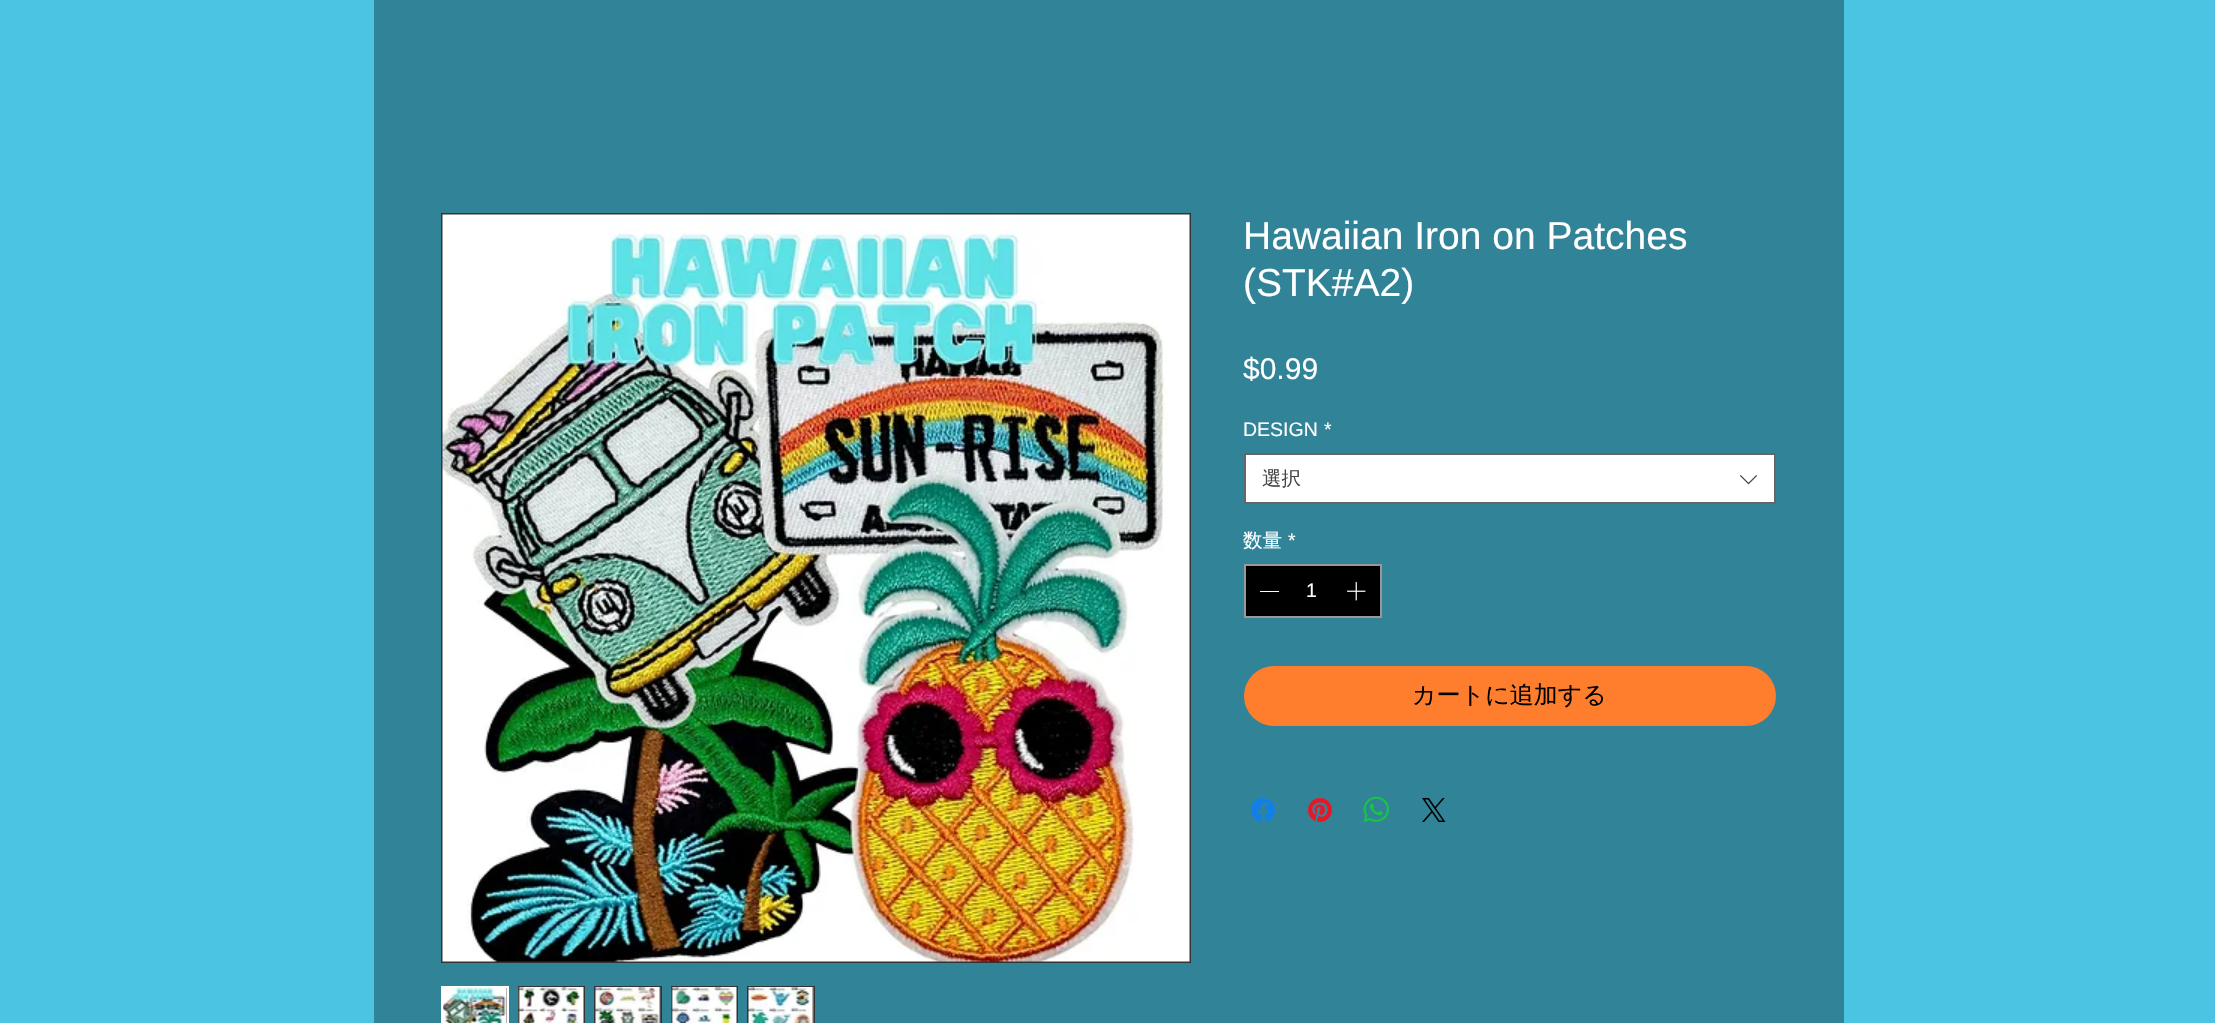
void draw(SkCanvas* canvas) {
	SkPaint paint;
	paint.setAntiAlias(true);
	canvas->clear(0xff4ac4e2);
	paint.setColor(0xff318397);
	canvas->drawRect(SkRect::MakeXYWH(374, 0, 1470, 1023), paint);
	paint.setStroke(true);
	paint.setStrokeWidth(2);
	paint.setColor(0xff333333);
	canvas->drawRect(SkRect::MakeXYWH(442, 214, 748, 748), paint);
	canvas->drawImageRect(SkImages::DeferredFromEncodedData(SkData::MakeFromFileName("img1.png")), SkRect::MakeXYWH(442, 214, 748, 748), SkSamplingOptions());
	paint.setStroke(false);
	canvas->drawRect(SkRect::MakeXYWH(506, 988, 1, 35), paint);
	paint.setStroke(true);
	paint.setColor(0xffffffff);
	canvas->drawRect(SkRect::MakeXYWH(442, 987, 66, 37), paint);
	canvas->drawImageRect(SkImages::DeferredFromEncodedData(SkData::MakeFromFileName("img2.png")), SkRect::MakeXYWH(443, 987, 64, 36), SkSamplingOptions());
	paint.setStroke(false);
	paint.setColor(0xff333333);
	canvas->drawRect(SkRect::MakeXYWH(518, 986, 67, 37), paint);
	canvas->drawImageRect(SkImages::DeferredFromEncodedData(SkData::MakeFromFileName("img3.png")), SkRect::MakeXYWH(518, 987, 66, 36), SkSamplingOptions());
	canvas->drawRect(SkRect::MakeXYWH(594, 986, 68, 37), paint);
	canvas->drawImageRect(SkImages::DeferredFromEncodedData(SkData::MakeFromFileName("img4.png")), SkRect::MakeXYWH(595, 987, 66, 36), SkSamplingOptions());
	canvas->drawRect(SkRect::MakeXYWH(671, 986, 67, 37), paint);
	canvas->drawImageRect(SkImages::DeferredFromEncodedData(SkData::MakeFromFileName("img5.png")), SkRect::MakeXYWH(671, 987, 66, 36), SkSamplingOptions());
	canvas->drawRect(SkRect::MakeXYWH(747, 986, 68, 37), paint);
	canvas->drawImageRect(SkImages::DeferredFromEncodedData(SkData::MakeFromFileName("img6.png")), SkRect::MakeXYWH(748, 987, 66, 36), SkSamplingOptions());
	SkFont f1(fontMgr->matchFamilyStyle("Liberation Sans", SkFontStyle::Normal()), 39);
	f1.setSubpixel(true);
	paint.setColor(0xffffffff);
	canvas->drawString("Hawaiian Iron on Patches", 1243, 249, f1, paint);
	canvas->drawString("(STK#A2)", 1243, 296, f1, paint);
	SkFont f2(fontMgr->matchFamilyStyle("Liberation Sans", SkFontStyle::Normal()), 30);
	f2.setSubpixel(true);
	canvas->drawString("$0.99", 1243, 379, f2, paint);
	SkFont f3(fontMgr->matchFamilyStyle("Liberation Sans", SkFontStyle::Normal()), 19.5);
	f3.setSubpixel(true);
	canvas->drawString("DESIGN", 1243, 436, f3, paint);
	canvas->drawString("*", 1324, 436, f3, paint);
	canvas->drawRect(SkRect::MakeXYWH(1245, 454, 530, 49), paint);
	paint.setStroke(true);
	paint.setColor(0xff666666);
	canvas->drawRect(SkRect::MakeXYWH(1245, 454, 530, 49), paint);
	SkFont f4(fontMgr->matchFamilyStyle("WenQuanYi Zen Hei", SkFontStyle(500, SkFontStyle::kNormal_Width, SkFontStyle::kUpright_Slant)), 19.5);
	f4.setSubpixel(true);
	paint.setStroke(false);
	paint.setColor(0xff444444);
	canvas->drawString("選択", 1262, 485, f4, paint);
	canvas->drawImageRect(SkImages::DeferredFromEncodedData(SkData::MakeFromFileName("img7.png")), SkRect::MakeXYWH(1740, 475, 17, 10), SkSamplingOptions());
	paint.setColor(0xffffffff);
	canvas->drawString("数量", 1243, 547, f4, paint);
	canvas->drawString("*", 1288, 547, f3, paint);
	paint.setColor(0xff000000);
	canvas->drawRect(SkRect::MakeXYWH(1245, 565, 136, 52), paint);
	paint.setStroke(true);
	paint.setColor(0xff999999);
	canvas->drawRect(SkRect::MakeXYWH(1245, 565, 136, 52), paint);
	paint.setStroke(false);
	paint.setColor(0xffffffff);
	canvas->drawRect(SkRect::MakeXYWH(1260, 591, 19, 1), paint);
	canvas->drawString("1", 1306, 597, f3, paint);
	canvas->drawImageRect(SkImages::DeferredFromEncodedData(SkData::MakeFromFileName("img8.png")), SkRect::MakeXYWH(1347, 582, 19, 19), SkSamplingOptions());
	paint.setColor(0xffff7e2d);
	canvas->drawRoundRect(SkRect::MakeXYWH(1244, 666, 532, 60), 30, 30, paint);
	SkFont f5(fontMgr->matchFamilyStyle("WenQuanYi Zen Hei", SkFontStyle(500, SkFontStyle::kNormal_Width, SkFontStyle::kUpright_Slant)), 24);
	f5.setSubpixel(true);
	paint.setColor(0xff000000);
	canvas->drawString("カートに追加する", 1412, 703, f5, paint);
	canvas->drawImageRect(SkImages::DeferredFromEncodedData(SkData::MakeFromFileName("img9.png")), SkRect::MakeXYWH(1251, 798, 24, 24), SkSamplingOptions());
	canvas->drawImageRect(SkImages::DeferredFromEncodedData(SkData::MakeFromFileName("img10.png")), SkRect::MakeXYWH(1308, 798, 24, 24), SkSamplingOptions());
	canvas->drawImageRect(SkImages::DeferredFromEncodedData(SkData::MakeFromFileName("img11.png")), SkRect::MakeXYWH(1363, 796, 26, 26), SkSamplingOptions());
	canvas->drawImageRect(SkImages::DeferredFromEncodedData(SkData::MakeFromFileName("img12.png")), SkRect::MakeXYWH(1422, 798, 24, 24), SkSamplingOptions());
}
